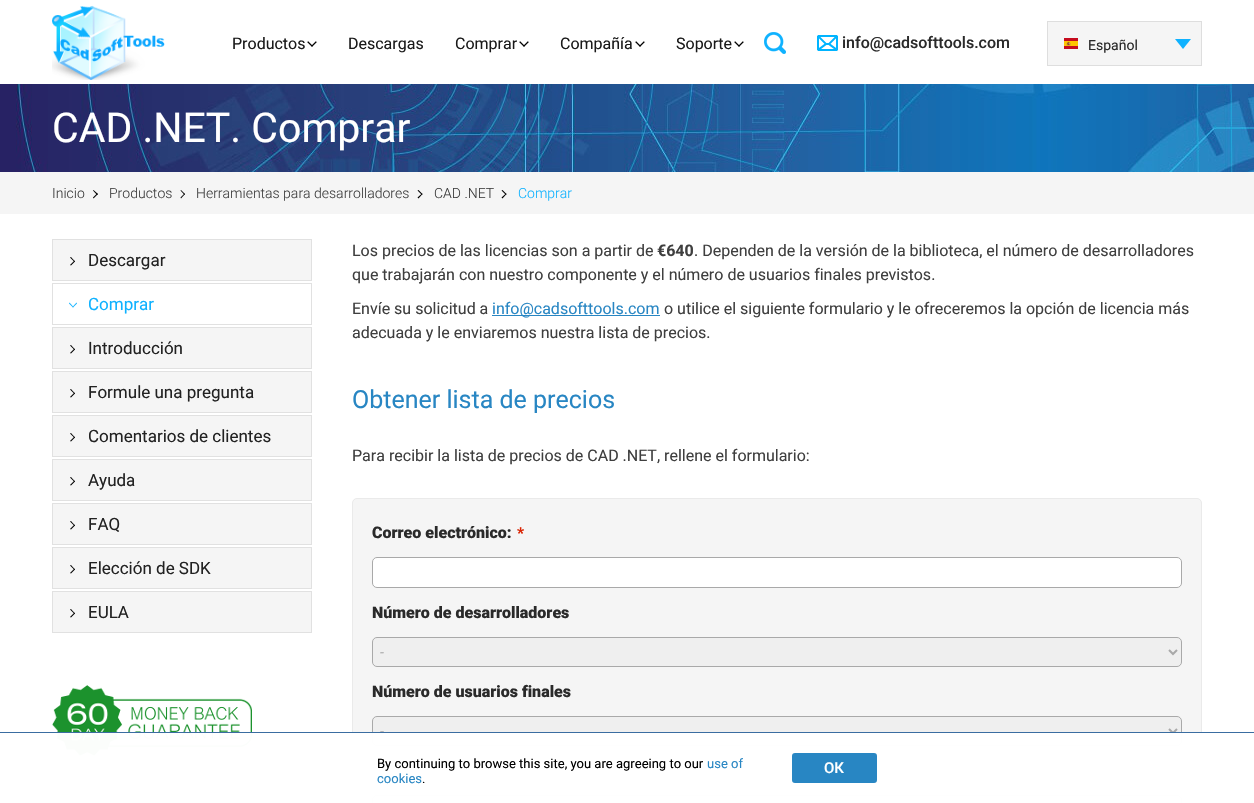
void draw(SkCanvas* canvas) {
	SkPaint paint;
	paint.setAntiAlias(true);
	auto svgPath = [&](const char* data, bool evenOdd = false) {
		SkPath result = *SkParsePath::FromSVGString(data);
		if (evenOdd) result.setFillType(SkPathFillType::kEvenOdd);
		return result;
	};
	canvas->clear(0xffffffff);
	canvas->drawImageRect(SkImages::DeferredFromEncodedData(SkData::MakeFromFileName("img1.png")), SkRect::MakeXYWH(52, 5, 113, 75), SkSamplingOptions());
	SkFont f1(fontMgr->matchFamilyStyle("Roboto", SkFontStyle::Normal()), 16);
	f1.setSubpixel(true);
	paint.setColor(0xff1a1a1a);
	canvas->drawString("Productos", 232, 49, f1, paint);
	canvas->drawImageRect(SkImages::DeferredFromEncodedData(SkData::MakeFromFileName("img2.png")), SkRect::MakeXYWH(307, 41, 10, 6), SkSamplingOptions());
	canvas->drawString("Descargas", 348, 49, f1, paint);
	canvas->drawString("Comprar", 455, 49, f1, paint);
	canvas->drawImageRect(SkImages::DeferredFromEncodedData(SkData::MakeFromFileName("img2.png")), SkRect::MakeXYWH(519, 41, 10, 6), SkSamplingOptions());
	canvas->drawString("Compañía", 560, 49, f1, paint);
	canvas->drawImageRect(SkImages::DeferredFromEncodedData(SkData::MakeFromFileName("img2.png")), SkRect::MakeXYWH(635, 41, 10, 6), SkSamplingOptions());
	canvas->drawString("Soporte", 676, 49, f1, paint);
	canvas->drawImageRect(SkImages::DeferredFromEncodedData(SkData::MakeFromFileName("img2.png")), SkRect::MakeXYWH(734, 41, 10, 6), SkSamplingOptions());
	canvas->drawImageRect(SkImages::DeferredFromEncodedData(SkData::MakeFromFileName("img3.png")), SkRect::MakeXYWH(764, 32, 22, 22), SkSamplingOptions());
	canvas->drawImageRect(SkImages::DeferredFromEncodedData(SkData::MakeFromFileName("img4.png")), SkRect::MakeXYWH(817, 35, 21, 16), SkSamplingOptions());
	SkFont f2(fontMgr->matchFamilyStyle("Roboto", SkFontStyle(500, SkFontStyle::kNormal_Width, SkFontStyle::kUpright_Slant)), 16);
	f2.setSubpixel(true);
	paint.setColor(0xff2a2a2a);
	canvas->drawString("info@cadsofttools.com", 842, 48, f2, paint);
	paint.setColor(0xfff5f5f5);
	canvas->drawRect(SkRect::MakeXYWH(1047.5, 21.5, 154, 44), paint);
	paint.setStroke(true);
	paint.setStrokeWidth(1);
	paint.setColor(0xffdedede);
	canvas->drawRect(SkRect::MakeXYWH(1047.5, 21.5, 154, 44), paint);
	canvas->drawImageRect(SkImages::DeferredFromEncodedData(SkData::MakeFromFileName("img5.png")), SkRect::MakeXYWH(1064, 38, 14, 11), SkSamplingOptions());
	SkFont f3(fontMgr->matchFamilyStyle("Roboto", SkFontStyle::Normal()), 14);
	f3.setSubpixel(true);
	paint.setStroke(false);
	paint.setColor(0xff2a2a2a);
	canvas->drawString("Español", 1088, 50, f3, paint);
	paint.setColor(0xff0fb2ff);
	canvas->drawPath(svgPath("M1175 39H1191L1183 49Z"), paint);
	canvas->drawImageRect(SkImages::DeferredFromEncodedData(SkData::MakeFromFileName("img6.png")), SkRect::MakeXYWH(0, 84, 1254, 88), SkSamplingOptions());
	SkFont f4(fontMgr->matchFamilyStyle("Roboto", SkFontStyle::Normal()), 41);
	f4.setSubpixel(true);
	paint.setColor(0xffffffff);
	canvas->drawString("CAD .NET. Comprar", 52, 142, f4, paint);
	paint.setColor(0xfff5f5f5);
	canvas->drawRect(SkRect::MakeXYWH(0, 172, 1254, 42), paint);
	SkFont f5(fontMgr->matchFamilyStyle("Roboto", SkFontStyle(300, SkFontStyle::kNormal_Width, SkFontStyle::kUpright_Slant)), 14);
	f5.setSubpixel(true);
	paint.setColor(0xff3f3f3f);
	canvas->drawString("Inicio", 52, 198, f5, paint);
	paint.setColor(0xff000000);
	canvas->drawPath(svgPath("M93 190.5L93.5 190L98 194L97 195Z"), paint);
	canvas->drawPath(svgPath("M93 197.5L97 193.5L98 194L93.5 198.5Z"), paint);
	paint.setColor(0xff3f3f3f);
	canvas->drawString("Productos", 109, 198, f5, paint);
	paint.setColor(0xff000000);
	canvas->drawPath(svgPath("M180.5 190.5L181 190L185 194L184.5 195Z"), paint);
	canvas->drawPath(svgPath("M180.5 197.5L184.5 193.5L185 194L181 198.5Z"), paint);
	paint.setColor(0xff3f3f3f);
	canvas->drawString("Herramientas para desarrolladores", 196, 198, f5, paint);
	paint.setColor(0xff000000);
	canvas->drawPath(svgPath("M417.5 190.5L418.5 190L422.5 194L422 195Z"), paint);
	canvas->drawPath(svgPath("M417.5 197.5L422 193.5L422.5 194L418.5 198.5Z"), paint);
	paint.setColor(0xff3f3f3f);
	canvas->drawString("CAD .NET", 434, 198, f5, paint);
	paint.setColor(0xff000000);
	canvas->drawPath(svgPath("M501.5 190.5L502.5 190L506.5 194L506 195Z"), paint);
	canvas->drawPath(svgPath("M501.5 197.5L506 193.5L506.5 194L502.5 198.5Z"), paint);
	paint.setColor(0xff0fb2ff);
	canvas->drawString("Comprar", 518, 198, f5, paint);
	paint.setColor(0xfff5f5f5);
	canvas->drawRect(SkRect::MakeXYWH(52.5, 239.5, 259, 41), paint);
	paint.setStroke(true);
	paint.setColor(0xffe1e1e1);
	canvas->drawRect(SkRect::MakeXYWH(52.5, 239.5, 259, 41), paint);
	paint.setStroke(false);
	paint.setColor(0xff000000);
	canvas->drawPath(svgPath("M70 257.5L71 257L75 261.5L74.5 262Z"), paint);
	canvas->drawPath(svgPath("M70 265L74.5 260.5L75 261.5L71 265.5Z"), paint);
	SkFont f6(fontMgr->matchFamilyStyle("Roboto", SkFontStyle::Normal()), 17);
	f6.setSubpixel(true);
	paint.setColor(0xff222222);
	canvas->drawString("Descargar", 88, 266, f6, paint);
	paint.setStroke(true);
	paint.setColor(0xffe1e1e1);
	canvas->drawRect(SkRect::MakeXYWH(52.5, 283.5, 259, 41), paint);
	paint.setStroke(false);
	paint.setColor(0xff0fb2ff);
	canvas->drawPath(svgPath("M76.5 302.5L77 303.5L73 307.5L72.5 307Z"), paint);
	canvas->drawPath(svgPath("M69.5 302.5L73.5 307L73 307.5L69 303.5Z"), paint);
	canvas->drawString("Comprar", 88, 310, f6, paint);
	paint.setColor(0xfff5f5f5);
	canvas->drawRect(SkRect::MakeXYWH(52.5, 327.5, 259, 41), paint);
	paint.setStroke(true);
	paint.setColor(0xffe1e1e1);
	canvas->drawRect(SkRect::MakeXYWH(52.5, 327.5, 259, 41), paint);
	paint.setStroke(false);
	paint.setColor(0xff000000);
	canvas->drawPath(svgPath("M70 345.5L71 345L75 349.5L74.5 350Z"), paint);
	canvas->drawPath(svgPath("M70 353L74.5 348.5L75 349.5L71 353.5Z"), paint);
	paint.setColor(0xff222222);
	canvas->drawString("Introducción", 88, 354, f6, paint);
	paint.setColor(0xfff5f5f5);
	canvas->drawRect(SkRect::MakeXYWH(52.5, 371.5, 259, 41), paint);
	paint.setStroke(true);
	paint.setColor(0xffe1e1e1);
	canvas->drawRect(SkRect::MakeXYWH(52.5, 371.5, 259, 41), paint);
	paint.setStroke(false);
	paint.setColor(0xff000000);
	canvas->drawPath(svgPath("M70 389.5L71 389L75 393.5L74.5 394Z"), paint);
	canvas->drawPath(svgPath("M70 397L74.5 392.5L75 393.5L71 397.5Z"), paint);
	paint.setColor(0xff222222);
	canvas->drawString("Formule una pregunta", 88, 398, f6, paint);
	paint.setColor(0xfff5f5f5);
	canvas->drawRect(SkRect::MakeXYWH(52.5, 415.5, 259, 41), paint);
	paint.setStroke(true);
	paint.setColor(0xffe1e1e1);
	canvas->drawRect(SkRect::MakeXYWH(52.5, 415.5, 259, 41), paint);
	paint.setStroke(false);
	paint.setColor(0xff000000);
	canvas->drawPath(svgPath("M70 433.5L71 433L75 437.5L74.5 438Z"), paint);
	canvas->drawPath(svgPath("M70 441L74.5 436.5L75 437.5L71 441.5Z"), paint);
	paint.setColor(0xff222222);
	canvas->drawString("Comentarios de clientes", 88, 442, f6, paint);
	paint.setColor(0xfff5f5f5);
	canvas->drawRect(SkRect::MakeXYWH(52.5, 459.5, 259, 41), paint);
	paint.setStroke(true);
	paint.setColor(0xffe1e1e1);
	canvas->drawRect(SkRect::MakeXYWH(52.5, 459.5, 259, 41), paint);
	paint.setStroke(false);
	paint.setColor(0xff000000);
	canvas->drawPath(svgPath("M70 477.5L71 477L75 481.5L74.5 482Z"), paint);
	canvas->drawPath(svgPath("M70 485L74.5 480.5L75 481.5L71 485.5Z"), paint);
	paint.setColor(0xff222222);
	canvas->drawString("Ayuda", 88, 486, f6, paint);
	paint.setColor(0xfff5f5f5);
	canvas->drawRect(SkRect::MakeXYWH(52.5, 503.5, 259, 41), paint);
	paint.setStroke(true);
	paint.setColor(0xffe1e1e1);
	canvas->drawRect(SkRect::MakeXYWH(52.5, 503.5, 259, 41), paint);
	paint.setStroke(false);
	paint.setColor(0xff000000);
	canvas->drawPath(svgPath("M70 521.5L71 521L75 525.5L74.5 526Z"), paint);
	canvas->drawPath(svgPath("M70 529L74.5 524.5L75 525.5L71 529.5Z"), paint);
	paint.setColor(0xff222222);
	canvas->drawString("FAQ", 88, 530, f6, paint);
	paint.setColor(0xfff5f5f5);
	canvas->drawRect(SkRect::MakeXYWH(52.5, 547.5, 259, 41), paint);
	paint.setStroke(true);
	paint.setColor(0xffe1e1e1);
	canvas->drawRect(SkRect::MakeXYWH(52.5, 547.5, 259, 41), paint);
	paint.setStroke(false);
	paint.setColor(0xff000000);
	canvas->drawPath(svgPath("M70 565.5L71 565L75 569.5L74.5 570Z"), paint);
	canvas->drawPath(svgPath("M70 573L74.5 568.5L75 569.5L71 573.5Z"), paint);
	paint.setColor(0xff222222);
	canvas->drawString("Elección de SDK", 88, 574, f6, paint);
	paint.setColor(0xfff5f5f5);
	canvas->drawRect(SkRect::MakeXYWH(52.5, 591.5, 259, 41), paint);
	paint.setStroke(true);
	paint.setColor(0xffe1e1e1);
	canvas->drawRect(SkRect::MakeXYWH(52.5, 591.5, 259, 41), paint);
	paint.setStroke(false);
	paint.setColor(0xff000000);
	canvas->drawPath(svgPath("M70 609.5L71 609L75 613.5L74.5 614Z"), paint);
	canvas->drawPath(svgPath("M70 617L74.5 612.5L75 613.5L71 617.5Z"), paint);
	paint.setColor(0xff222222);
	canvas->drawString("EULA", 88, 618, f6, paint);
	canvas->drawImageRect(SkImages::DeferredFromEncodedData(SkData::MakeFromFileName("img7.png")), SkRect::MakeXYWH(52, 685, 200, 71), SkSamplingOptions());
	paint.setColor(0xff3f3f3f);
	canvas->drawString("Los precios de las licencias son a partir de", 352, 256, f1, paint);
	SkFont f7(fontMgr->matchFamilyStyle("Roboto", SkFontStyle::Bold()), 16);
	f7.setSubpixel(true);
	canvas->drawString("€640", 657, 256, f7, paint);
	canvas->drawString(". Dependen de la versión de la biblioteca, el número de desarrolladores", 694, 256, f1, paint);
	canvas->drawString("que trabajarán con nuestro componente y el número de usuarios finales previstos.", 352, 280, f1, paint);
	canvas->drawString("Envíe su solicitud a", 352, 314, f1, paint);
	paint.setColor(0xff2886c3);
	canvas->drawRect(SkRect::MakeXYWH(492, 315, 168, 1), paint);
	canvas->drawString("info@cadsofttools.com", 492, 314, f1, paint);
	paint.setColor(0xff3f3f3f);
	canvas->drawString("o utilice el siguiente formulario y le ofreceremos la opción de licencia más", 664, 314, f1, paint);
	canvas->drawString("adecuada y le enviaremos nuestra lista de precios.", 352, 338, f1, paint);
	SkFont f8(fontMgr->matchFamilyStyle("Roboto", SkFontStyle::Normal()), 25);
	f8.setSubpixel(true);
	paint.setColor(0xff2886c3);
	canvas->drawString("Obtener lista de precios", 352, 408, f8, paint);
	paint.setColor(0xff3f3f3f);
	canvas->drawString("Para recibir la lista de precios de CAD .NET, rellene el formulario:", 352, 461, f1, paint);
	paint.setColor(0xfff5f5f5);
	canvas->drawRoundRect(SkRect::MakeXYWH(352.5, 498.5, 849, 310), 4.5, 4.5, paint);
	paint.setStroke(true);
	paint.setColor(0xffeaeaea);
	canvas->drawRoundRect(SkRect::MakeXYWH(352.5, 498.5, 849, 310), 4.5, 4.5, paint);
	SkFont f9(fontMgr->matchFamilyStyle("Roboto", SkFontStyle(900, SkFontStyle::kNormal_Width, SkFontStyle::kUpright_Slant)), 16);
	f9.setSubpixel(true);
	paint.setStroke(false);
	paint.setColor(0xff2a2a2a);
	canvas->drawString("Correo electrónico:", 372, 538, f9, paint);
	SkFont f10(fontMgr->matchFamilyStyle("Roboto", SkFontStyle(900, SkFontStyle::kNormal_Width, SkFontStyle::kUpright_Slant)), 15);
	f10.setSubpixel(true);
	paint.setColor(0xffda2403);
	canvas->drawString("*", 517, 538, f10, paint);
	paint.setColor(0xffffffff);
	canvas->drawRoundRect(SkRect::MakeXYWH(372.5, 557.5, 809, 30), 4.5, 4.5, paint);
	paint.setStroke(true);
	paint.setColor(0xffa9a9a9);
	canvas->drawRoundRect(SkRect::MakeXYWH(372.5, 557.5, 809, 30), 4.5, 4.5, paint);
	paint.setStroke(false);
	paint.setColor(0xff2a2a2a);
	canvas->drawString("Número de desarrolladores", 372, 618, f9, paint);
	paint.setColor(0xffefefef);
	canvas->drawRoundRect(SkRect::MakeXYWH(372.5, 637.5, 809, 29), 4.5, 4.5, paint);
	paint.setStroke(true);
	paint.setColor(0xffa9a9a9);
	canvas->drawRoundRect(SkRect::MakeXYWH(372.5, 637.5, 809, 29), 4.5, 4.5, paint);
	paint.setStrokeWidth(2);
	canvas->drawPath(svgPath("M1169 650L1173 654L1177 650"), paint);
	SkFont f11(fontMgr->matchFamilyStyle("Roboto", SkFontStyle::Italic()), 14);
	f11.setSubpixel(true);
	paint.setStroke(false);
	canvas->drawString("-", 379, 657, f11, paint);
	paint.setColor(0xff2a2a2a);
	canvas->drawString("Número de usuarios finales", 372, 697, f9, paint);
	paint.setColor(0xffefefef);
	canvas->drawRoundRect(SkRect::MakeXYWH(372.5, 716.5, 809, 29), 4.5, 4.5, paint);
	paint.setStroke(true);
	paint.setStrokeWidth(1);
	paint.setColor(0xffa9a9a9);
	canvas->drawRoundRect(SkRect::MakeXYWH(372.5, 716.5, 809, 29), 4.5, 4.5, paint);
	paint.setStrokeWidth(2);
	canvas->drawPath(svgPath("M1169 729L1173 733L1177 729"), paint);
	paint.setStroke(false);
	canvas->drawString("-", 379, 736, f11, paint);
	paint.setColor(0xffffffff);
	canvas->drawRoundRect(SkRect::MakeXYWH(372.5, 795.5, 809, 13), 4.5, 4.5, paint);
	paint.setStroke(true);
	paint.setStrokeWidth(1);
	paint.setColor(0xffa9a9a9);
	canvas->drawRoundRect(SkRect::MakeXYWH(372.5, 795.5, 809, 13), 4.5, 4.5, paint);
	paint.setStroke(false);
	paint.setColor(0xfaffffff);
	canvas->drawRect(SkRect::MakeXYWH(56, 733, 1146, 70), paint);
	paint.setColor(0xff3a6da1);
	canvas->drawRect(SkRect::MakeXYWH(0, 732, 1254, 1), paint);
	SkFont f12(fontMgr->matchFamilyStyle("Roboto", SkFontStyle::Normal()), 13);
	f12.setSubpixel(true);
	paint.setColor(0xff000000);
	canvas->drawString("By continuing to browse this site, you are agreeing to our", 377, 768, f12, paint);
	paint.setColor(0xff2886c3);
	canvas->drawString("use of", 707, 768, f12, paint);
	canvas->drawString("cookies", 377, 783, f12, paint);
	paint.setColor(0xff000000);
	canvas->drawString(".", 422, 783, f12, paint);
	paint.setColor(0xff2886c3);
	canvas->drawRoundRect(SkRect::MakeXYWH(793, 754, 83, 28), 2, 2, paint);
	paint.setStroke(true);
	paint.setStrokeWidth(2);
	canvas->drawRoundRect(SkRect::MakeXYWH(793, 754, 83, 28), 2, 2, paint);
	SkFont f13(fontMgr->matchFamilyStyle("Roboto", SkFontStyle(500, SkFontStyle::kNormal_Width, SkFontStyle::kUpright_Slant)), 15);
	f13.setSubpixel(true);
	paint.setStroke(false);
	paint.setColor(0xffffffff);
	canvas->drawString("ОК", 824, 773, f13, paint);
}
